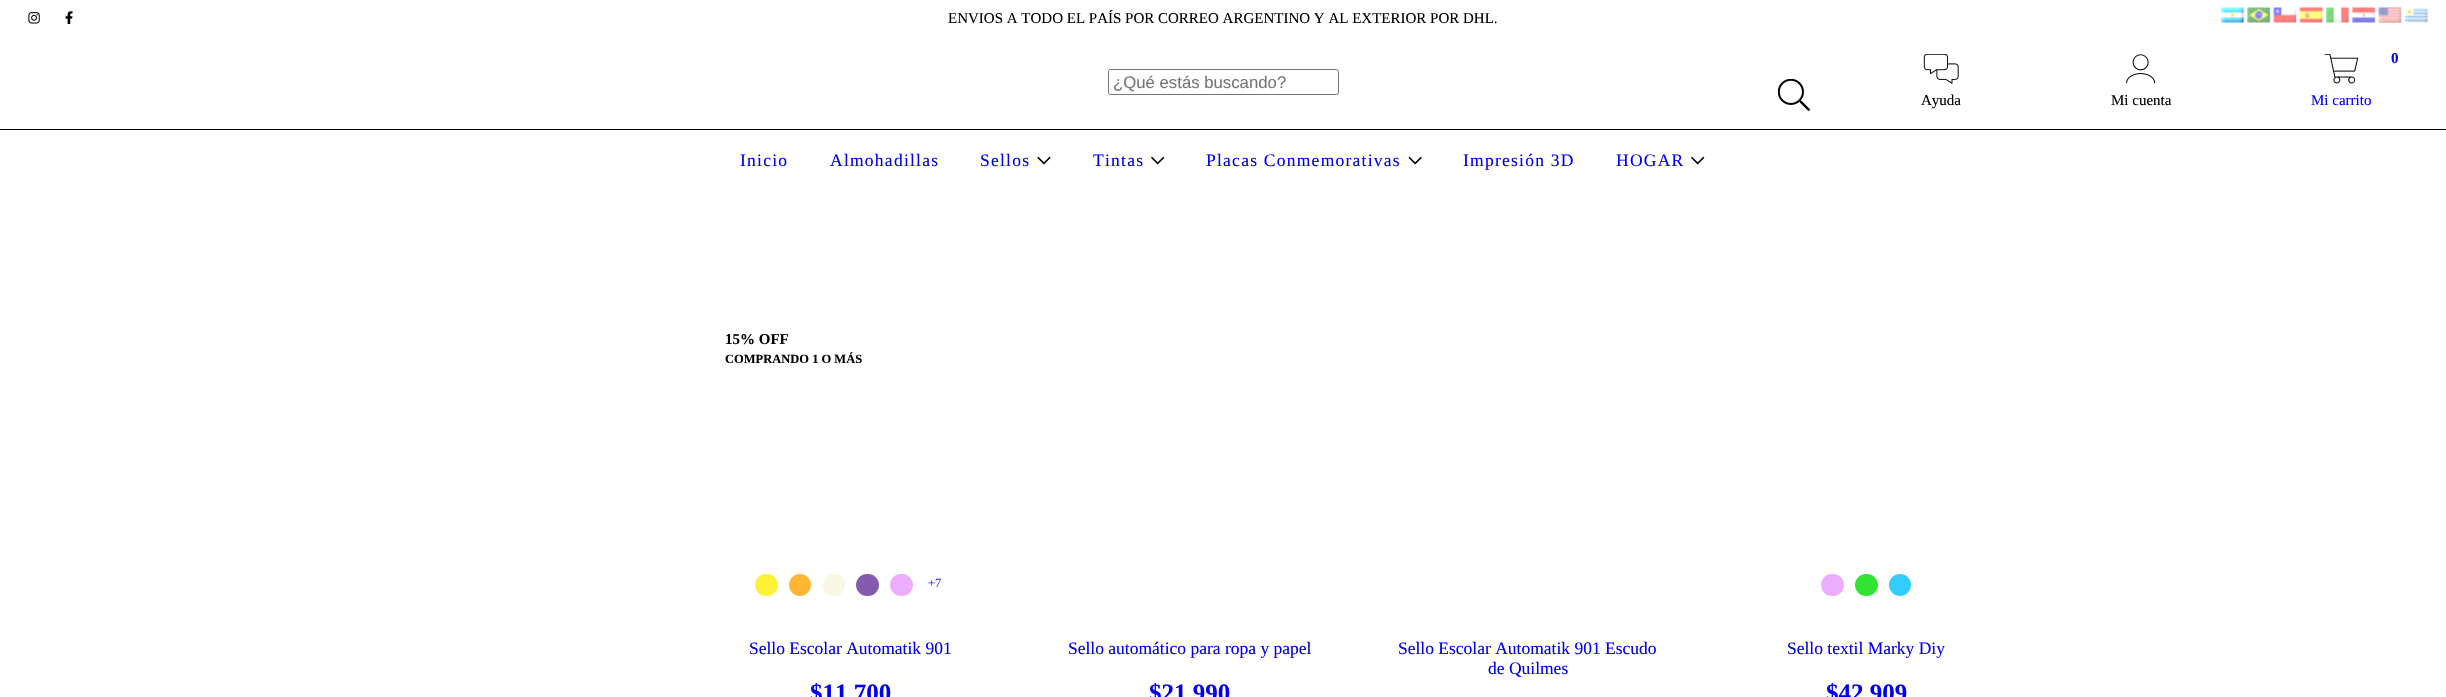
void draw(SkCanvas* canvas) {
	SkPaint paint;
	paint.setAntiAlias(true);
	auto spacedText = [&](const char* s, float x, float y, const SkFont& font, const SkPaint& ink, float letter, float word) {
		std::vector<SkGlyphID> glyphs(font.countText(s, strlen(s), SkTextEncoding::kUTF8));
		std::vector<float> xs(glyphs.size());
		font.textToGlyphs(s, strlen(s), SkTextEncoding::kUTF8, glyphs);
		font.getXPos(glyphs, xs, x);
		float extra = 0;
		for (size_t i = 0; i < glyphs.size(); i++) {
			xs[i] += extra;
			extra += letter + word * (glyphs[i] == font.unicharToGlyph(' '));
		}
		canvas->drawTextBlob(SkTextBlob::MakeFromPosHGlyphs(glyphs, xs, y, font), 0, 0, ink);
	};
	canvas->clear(0xffffffff);
	canvas->drawImageRect(SkImages::DeferredFromEncodedData(SkData::MakeFromFileName("img1.png")), SkRect::MakeXYWH(28, 12, 12, 12), SkSamplingOptions());
	canvas->drawImageRect(SkImages::DeferredFromEncodedData(SkData::MakeFromFileName("img2.png")), SkRect::MakeXYWH(65, 11, 8, 13), SkSamplingOptions());
	SkFont f1(fontMgr->matchFamilyStyle("Liberation Serif", SkFontStyle::Normal()), 15);
	f1.setSubpixel(true);
	paint.setColor(0xff000000);
	canvas->drawString("ENVIOS A TODO EL PAÍS POR CORREO ARGENTINO Y AL EXTERIOR POR DHL.", 948, 23, f1, paint);
	canvas->drawImageRect(SkImages::DeferredFromEncodedData(SkData::MakeFromFileName("img3.png")), SkRect::MakeXYWH(2221, 7, 24, 16), SkSamplingOptions());
	canvas->drawImageRect(SkImages::DeferredFromEncodedData(SkData::MakeFromFileName("img4.png")), SkRect::MakeXYWH(2247, 7, 24, 16), SkSamplingOptions());
	canvas->drawImageRect(SkImages::DeferredFromEncodedData(SkData::MakeFromFileName("img5.png")), SkRect::MakeXYWH(2273, 7, 24, 16), SkSamplingOptions());
	canvas->drawImageRect(SkImages::DeferredFromEncodedData(SkData::MakeFromFileName("img6.png")), SkRect::MakeXYWH(2299, 7, 25, 16), SkSamplingOptions());
	canvas->drawImageRect(SkImages::DeferredFromEncodedData(SkData::MakeFromFileName("img7.png")), SkRect::MakeXYWH(2326, 7, 24, 16), SkSamplingOptions());
	canvas->drawImageRect(SkImages::DeferredFromEncodedData(SkData::MakeFromFileName("img8.png")), SkRect::MakeXYWH(2352, 7, 24, 16), SkSamplingOptions());
	canvas->drawImageRect(SkImages::DeferredFromEncodedData(SkData::MakeFromFileName("img9.png")), SkRect::MakeXYWH(2378, 7, 24, 16), SkSamplingOptions());
	canvas->drawImageRect(SkImages::DeferredFromEncodedData(SkData::MakeFromFileName("img10.png")), SkRect::MakeXYWH(2404, 8, 25, 15), SkSamplingOptions());
	paint.setStroke(true);
	paint.setStrokeWidth(1);
	paint.setColor(0xff767676);
	canvas->drawRoundRect(SkRect::MakeXYWH(1108.5, 69.5, 230, 25), 2, 2, paint);
	SkFont f2(fontMgr->matchFamilyStyle("Liberation Sans", SkFontStyle::Normal()), 16.75);
	f2.setSubpixel(true);
	paint.setStroke(false);
	paint.setColor(0xff757575);
	canvas->drawString("¿Qué estás buscando?", 1113, 88, f2, paint);
	canvas->drawImageRect(SkImages::DeferredFromEncodedData(SkData::MakeFromFileName("img11.png")), SkRect::MakeXYWH(1778, 79, 32, 32), SkSamplingOptions());
	canvas->drawImageRect(SkImages::DeferredFromEncodedData(SkData::MakeFromFileName("img12.png")), SkRect::MakeXYWH(1923, 54, 36, 30), SkSamplingOptions());
	paint.setColor(0xff000000);
	canvas->drawString("Ayuda", 1921, 105, f1, paint);
	canvas->drawImageRect(SkImages::DeferredFromEncodedData(SkData::MakeFromFileName("img13.png")), SkRect::MakeXYWH(2126, 54, 30, 30), SkSamplingOptions());
	canvas->drawString("Mi cuenta", 2111, 105, f1, paint);
	canvas->drawImageRect(SkImages::DeferredFromEncodedData(SkData::MakeFromFileName("img14.png")), SkRect::MakeXYWH(2324, 54, 35, 30), SkSamplingOptions());
	SkFont f3(fontMgr->matchFamilyStyle("Liberation Serif", SkFontStyle::Bold()), 15);
	f3.setSubpixel(true);
	paint.setColor(0xff0000ee);
	canvas->drawString("0", 2391, 63, f3, paint);
	canvas->drawString("Mi carrito", 2311, 105, f1, paint);
	paint.setColor(0xff000000);
	canvas->drawRect(SkRect::MakeXYWH(0, 129, 2446, 1), paint);
	SkFont f4(fontMgr->matchFamilyStyle("Liberation Serif", SkFontStyle::Normal()), 17.5);
	f4.setSubpixel(true);
	paint.setColor(0xff0000ee);
	spacedText("Inicio", 740, 166, f4, paint, 1.25, 0);
	spacedText("Almohadillas", 830, 166, f4, paint, 1.25, 0);
	spacedText("Sellos", 980, 166, f4, paint, 1.25, 0);
	canvas->drawImageRect(SkImages::DeferredFromEncodedData(SkData::MakeFromFileName("img15.png")), SkRect::MakeXYWH(1037, 156, 14, 9), SkSamplingOptions());
	spacedText("Tintas", 1093, 166, f4, paint, 1.25, 0);
	canvas->drawImageRect(SkImages::DeferredFromEncodedData(SkData::MakeFromFileName("img16.png")), SkRect::MakeXYWH(1151, 156, 14, 9), SkSamplingOptions());
	spacedText("Placas Conmemorativas", 1206, 166, f4, paint, 1.25, 0);
	canvas->drawImageRect(SkImages::DeferredFromEncodedData(SkData::MakeFromFileName("img17.png")), SkRect::MakeXYWH(1408, 156, 14, 9), SkSamplingOptions());
	spacedText("Impresión 3D", 1463, 166, f4, paint, 1.25, 0);
	spacedText("HOGAR", 1616, 166, f4, paint, 1.25, 0);
	canvas->drawImageRect(SkImages::DeferredFromEncodedData(SkData::MakeFromFileName("img16.png")), SkRect::MakeXYWH(1691, 156, 14, 9), SkSamplingOptions());
	paint.setColor(0xff000000);
	canvas->drawString("15% OFF", 725, 344, f3, paint);
	SkFont f5(fontMgr->matchFamilyStyle("Liberation Serif", SkFontStyle::Bold()), 12.5);
	f5.setSubpixel(true);
	canvas->drawString("COMPRANDO 1 O MÁS", 725, 363, f5, paint);
	paint.setColor(0xfffff135);
	canvas->drawRoundRect(SkRect::MakeXYWH(755, 574, 23, 22), 11, 11, paint);
	paint.setColor(0xffffb733);
	canvas->drawCircle(800, 585, 11, paint);
	paint.setColor(0xfff7f7e3);
	canvas->drawCircle(834, 585, 11, paint);
	paint.setColor(0xff855cad);
	canvas->drawRoundRect(SkRect::MakeXYWH(856, 574, 23, 22), 11, 11, paint);
	paint.setColor(0xffedadff);
	canvas->drawRoundRect(SkRect::MakeXYWH(890, 574, 23, 22), 11, 11, paint);
	SkFont f6(fontMgr->matchFamilyStyle("Liberation Serif", SkFontStyle::Normal()), 12.5);
	f6.setSubpixel(true);
	paint.setColor(0xff3333f1);
	canvas->drawString("+7", 928, 587, f6, paint);
	paint.setColor(0xff0000ee);
	canvas->drawString("Sello Escolar Automatik 901", 749, 654, f4, paint);
	SkFont f7(fontMgr->matchFamilyStyle("Liberation Serif", SkFontStyle::Bold()), 25);
	f7.setSubpixel(true);
	canvas->drawString("$11.700", 810, 701, f7, paint);
	canvas->drawString("Sello automático para ropa y papel", 1068, 654, f4, paint);
	canvas->drawString("$21.990", 1149, 701, f7, paint);
	canvas->drawString("Sello Escolar Automatik 901 Escudo", 1398, 654, f4, paint);
	canvas->drawString("de Quilmes", 1488, 674, f4, paint);
	paint.setColor(0xffedadff);
	canvas->drawRoundRect(SkRect::MakeXYWH(1821, 574, 23, 22), 11, 11, paint);
	paint.setColor(0xff33e333);
	canvas->drawRoundRect(SkRect::MakeXYWH(1855, 574, 23, 22), 11, 11, paint);
	paint.setColor(0xff33ccff);
	canvas->drawCircle(1900, 585, 11, paint);
	paint.setColor(0xff0000ee);
	canvas->drawString("Sello textil Marky Diy", 1787, 654, f4, paint);
	canvas->drawString("$42.909", 1826, 701, f7, paint);
}
